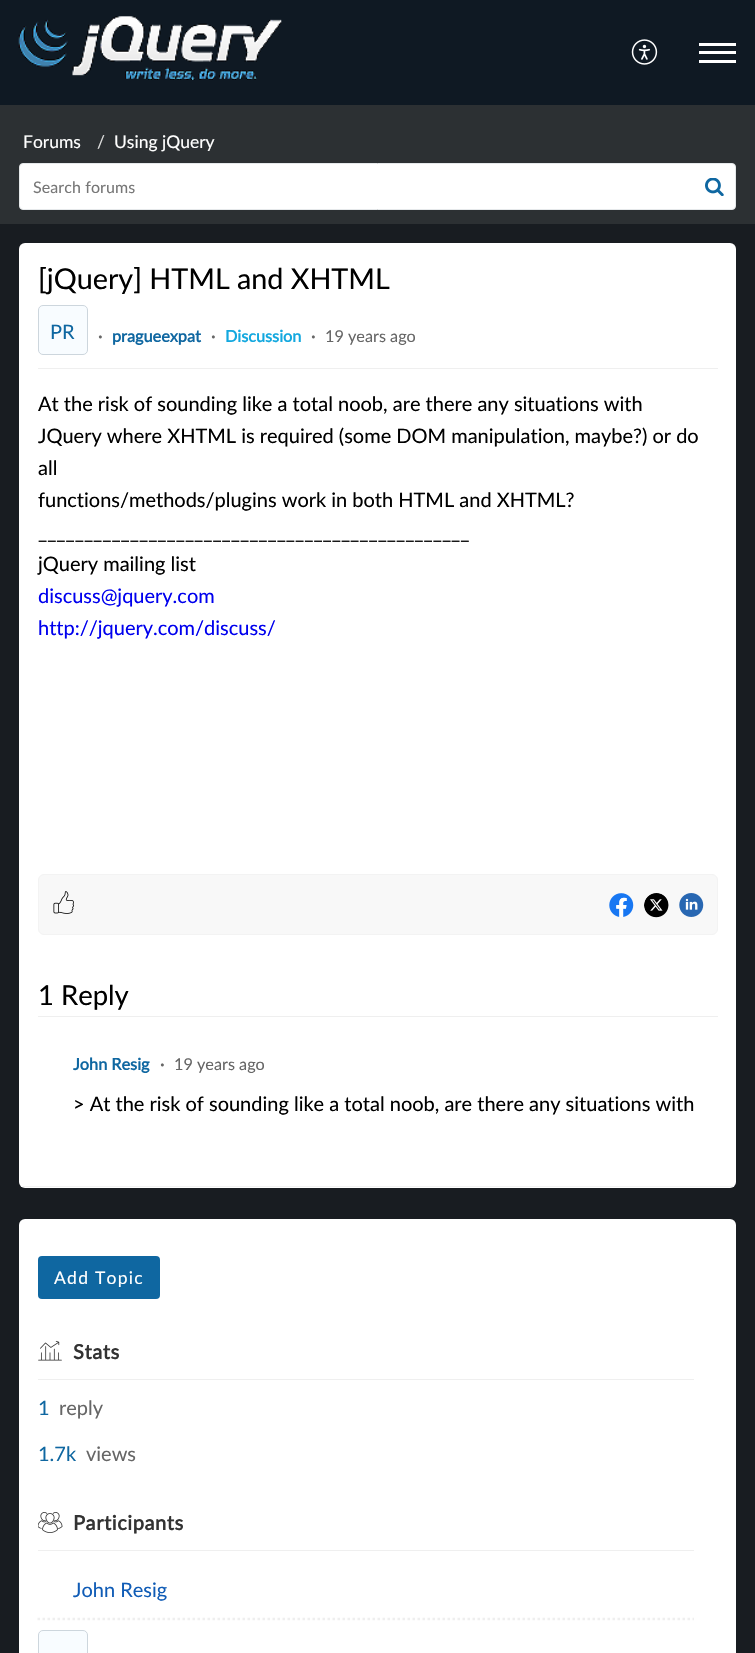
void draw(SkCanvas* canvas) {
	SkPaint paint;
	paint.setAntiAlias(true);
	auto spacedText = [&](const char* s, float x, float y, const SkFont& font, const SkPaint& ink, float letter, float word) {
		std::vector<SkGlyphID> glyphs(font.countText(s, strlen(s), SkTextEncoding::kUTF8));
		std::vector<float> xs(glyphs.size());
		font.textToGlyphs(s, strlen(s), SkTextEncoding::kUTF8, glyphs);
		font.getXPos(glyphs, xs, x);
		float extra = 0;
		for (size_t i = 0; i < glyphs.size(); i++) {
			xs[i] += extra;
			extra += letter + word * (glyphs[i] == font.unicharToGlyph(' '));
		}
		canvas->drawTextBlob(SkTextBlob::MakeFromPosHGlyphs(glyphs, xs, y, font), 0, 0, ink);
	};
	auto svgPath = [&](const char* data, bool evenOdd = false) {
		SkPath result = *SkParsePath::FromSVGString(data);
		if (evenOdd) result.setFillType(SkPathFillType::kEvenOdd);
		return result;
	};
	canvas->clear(0xff2c3033);
	paint.setColor(0xff0f1923);
	canvas->drawRect(SkRect::MakeXYWH(0, 0, 755, 105), paint);
	canvas->drawImageRect(SkImages::DeferredFromEncodedData(SkData::MakeFromFileName("img1.png")), SkRect::MakeXYWH(18, 16, 264, 64), SkSamplingOptions());
	canvas->drawImageRect(SkImages::DeferredFromEncodedData(SkData::MakeFromFileName("img2.png")), SkRect::MakeXYWH(631, 39, 27, 26), SkSamplingOptions());
	paint.setColor(0xffffffff);
	canvas->drawRect(SkRect::MakeXYWH(699, 51, 37, 3), paint);
	canvas->drawRect(SkRect::MakeXYWH(699, 43, 37, 3), paint);
	canvas->drawRect(SkRect::MakeXYWH(699, 60, 37, 3), paint);
	SkFont f1(fontMgr->matchFamilyStyle("Lato", SkFontStyle::Normal()), 17.5);
	f1.setSubpixel(true);
	canvas->drawString("Forums", 23, 148, f1, paint);
	paint.setColor(0xffdddddd);
	canvas->drawString("/", 97, 148, f1, paint);
	paint.setColor(0xffffffff);
	canvas->drawString("Using jQuery", 114, 148, f1, paint);
	canvas->drawRoundRect(SkRect::MakeXYWH(19.5, 163.5, 716, 46), 3.5, 3.5, paint);
	paint.setStroke(true);
	paint.setStrokeWidth(1);
	paint.setColor(0xffe5e8ea);
	canvas->drawRoundRect(SkRect::MakeXYWH(19.5, 163.5, 716, 46), 3.5, 3.5, paint);
	SkFont f2(fontMgr->matchFamilyStyle("Lato", SkFontStyle::Normal()), 16);
	f2.setSubpixel(true);
	paint.setStroke(false);
	paint.setColor(0xff777777);
	spacedText("Search forums", 33, 193, f2, paint, 0.1, 0);
	canvas->drawImageRect(SkImages::DeferredFromEncodedData(SkData::MakeFromFileName("img3.png")), SkRect::MakeXYWH(705, 178, 19, 18), SkSamplingOptions());
	paint.setColor(0xff181c21);
	canvas->drawRect(SkRect::MakeXYWH(0, 224, 755, 1429), paint);
	paint.setColor(0xffffffff);
	canvas->drawRoundRect(SkRect::MakeXYWH(19, 243, 717, 945), 6, 6, paint);
	paint.setColor(0xfff2f2f2);
	canvas->drawRect(SkRect::MakeXYWH(23, 1186, 711, 1), paint);
	paint.setColor(0xffefefef);
	canvas->drawRect(SkRect::MakeXYWH(38, 368, 680, 1), paint);
	SkFont f3(fontMgr->matchFamilyStyle("Lato", SkFontStyle::Normal()), 28.75);
	f3.setSubpixel(true);
	paint.setColor(0xff000000);
	canvas->drawString("[jQuery] HTML and XHTML", 38, 289, f3, paint);
	paint.setColor(0xfff8fcff);
	canvas->drawRoundRect(SkRect::MakeXYWH(38.5, 305.5, 49, 49), 4.5, 4.5, paint);
	paint.setStroke(true);
	paint.setColor(0xffcdd6dd);
	canvas->drawRoundRect(SkRect::MakeXYWH(38.5, 305.5, 49, 49), 4.5, 4.5, paint);
	SkFont f4(fontMgr->matchFamilyStyle("Lato", SkFontStyle::Normal()), 20);
	f4.setSubpixel(true);
	paint.setStroke(false);
	paint.setColor(0xff0f67a1);
	canvas->drawString("PR", 50, 339, f4, paint);
	SkFont f5(fontMgr->matchFamilyStyle("Lato", SkFontStyle::Bold()), 16.25);
	f5.setSubpixel(true);
	paint.setColor(0xff666666);
	canvas->drawString("·", 98, 342, f5, paint);
	paint.setColor(0xff0f67a1);
	canvas->drawString("pragueexpat", 112, 342, f5, paint);
	paint.setColor(0xff666666);
	canvas->drawString("·", 211, 342, f5, paint);
	paint.setColor(0xff13a8df);
	canvas->drawString("Discussion", 225, 342, f5, paint);
	paint.setColor(0xff666666);
	canvas->drawString("·", 311, 342, f5, paint);
	SkFont f6(fontMgr->matchFamilyStyle("Lato", SkFontStyle::Normal()), 16.25);
	f6.setSubpixel(true);
	canvas->drawString("19 years ago", 325, 342, f6, paint);
	paint.setColor(0xff000000);
	canvas->drawString("At the risk of sounding like a total noob, are there any situations with", 38, 411, f4, paint);
	canvas->drawString("JQuery where XHTML is required (some DOM manipulation, maybe?) or do", 38, 443, f4, paint);
	canvas->drawString("all", 38, 475, f4, paint);
	canvas->drawString("functions/methods/plugins work in both HTML and XHTML?", 38, 507, f4, paint);
	canvas->drawString("_______________________________________________", 38, 539, f4, paint);
	canvas->drawString("jQuery mailing list", 38, 571, f4, paint);
	paint.setColor(0xff0000ee);
	canvas->drawString("discuss@jquery.com", 38, 603, f4, paint);
	canvas->drawString("http://jquery.com/discuss/", 38, 635, f4, paint);
	paint.setColor(0xfff8f8f8);
	canvas->drawRoundRect(SkRect::MakeXYWH(38.5, 874.5, 679, 60), 5.5, 5.5, paint);
	paint.setStroke(true);
	paint.setColor(0xfff3f3f3);
	canvas->drawRoundRect(SkRect::MakeXYWH(38.5, 874.5, 679, 60), 5.5, 5.5, paint);
	canvas->drawImageRect(SkImages::DeferredFromEncodedData(SkData::MakeFromFileName("img4.png")), SkRect::MakeXYWH(53, 891, 21, 23), SkSamplingOptions());
	canvas->drawImageRect(SkImages::DeferredFromEncodedData(SkData::MakeFromFileName("img5.png")), SkRect::MakeXYWH(609, 893, 25, 24), SkSamplingOptions());
	canvas->drawImageRect(SkImages::DeferredFromEncodedData(SkData::MakeFromFileName("img6.png")), SkRect::MakeXYWH(644, 893, 25, 25), SkSamplingOptions());
	canvas->drawImageRect(SkImages::DeferredFromEncodedData(SkData::MakeFromFileName("img7.png")), SkRect::MakeXYWH(679, 893, 25, 24), SkSamplingOptions());
	paint.setStroke(false);
	paint.setColor(0xffefefef);
	canvas->drawRect(SkRect::MakeXYWH(38, 1016, 680, 1), paint);
	SkFont f7(fontMgr->matchFamilyStyle("Lato", SkFontStyle::Normal()), 27.5);
	f7.setSubpixel(true);
	paint.setColor(0xff000000);
	canvas->drawString("1 Reply", 38, 1005, f7, paint);
	paint.setColor(0xff0f67a1);
	canvas->drawString("John Resig", 73, 1070, f5, paint);
	paint.setColor(0xff666666);
	canvas->drawString("·", 160, 1070, f5, paint);
	canvas->drawString("19 years ago", 174, 1070, f6, paint);
	paint.setColor(0xff000000);
	canvas->drawString("> At the risk of sounding like a total noob, are there any situations with", 73, 1111, f4, paint);
	paint.setColor(0xffffffff);
	canvas->drawRoundRect(SkRect::MakeXYWH(19, 1219, 717, 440), 6, 6, paint);
	paint.setColor(0xff0f67a1);
	canvas->drawRoundRect(SkRect::MakeXYWH(38, 1256, 122, 43), 4, 4, paint);
	paint.setColor(0xffffffff);
	spacedText("Add Topic", 54, 1284, f1, paint, 1.25, 0);
	paint.setColor(0xffefefef);
	canvas->drawRect(SkRect::MakeXYWH(38, 1379, 656, 1), paint);
	canvas->drawImageRect(SkImages::DeferredFromEncodedData(SkData::MakeFromFileName("img8.png")), SkRect::MakeXYWH(38, 1340, 24, 21), SkSamplingOptions());
	SkFont f8(fontMgr->matchFamilyStyle("Lato", SkFontStyle::Bold()), 20);
	f8.setSubpixel(true);
	paint.setColor(0xff333333);
	spacedText("Stats", 73, 1359, f8, paint, 0.6, 0);
	paint.setColor(0xff0f67a1);
	canvas->drawString("1", 38, 1415, f4, paint);
	paint.setColor(0xff666666);
	canvas->drawString("reply", 59, 1415, f4, paint);
	paint.setColor(0xff0f67a1);
	canvas->drawString("1.7k", 38, 1461, f4, paint);
	paint.setColor(0xff666666);
	canvas->drawString("views", 86, 1461, f4, paint);
	paint.setColor(0xffefefef);
	canvas->drawRect(SkRect::MakeXYWH(38, 1550, 656, 1), paint);
	canvas->drawImageRect(SkImages::DeferredFromEncodedData(SkData::MakeFromFileName("img9.png")), SkRect::MakeXYWH(38, 1512, 25, 21), SkSamplingOptions());
	paint.setColor(0xff333333);
	spacedText("Participants", 73, 1530, f8, paint, 0.6, 0);
	paint.setStroke(true);
	paint.setStrokeWidth(2.5);
	paint.setColor(0xffefefef);
	paint.setPathEffect(SkDashPathEffect::Make({{2.5f, 2.5f}}, 0));
	canvas->drawPath(svgPath("M37.5 1619H694"), paint);
	paint.setPathEffect(nullptr);
	paint.setStroke(false);
	paint.setColor(0xff105cb6);
	canvas->drawString("John Resig", 73, 1597, f4, paint);
	paint.setColor(0xfff8fcff);
	canvas->drawRoundRect(SkRect::MakeXYWH(38.5, 1630.5, 49, 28), 4.5, 4.5, paint);
	paint.setStroke(true);
	paint.setStrokeWidth(1);
	paint.setColor(0xffcdd6dd);
	canvas->drawRoundRect(SkRect::MakeXYWH(38.5, 1630.5, 49, 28), 4.5, 4.5, paint);
}
